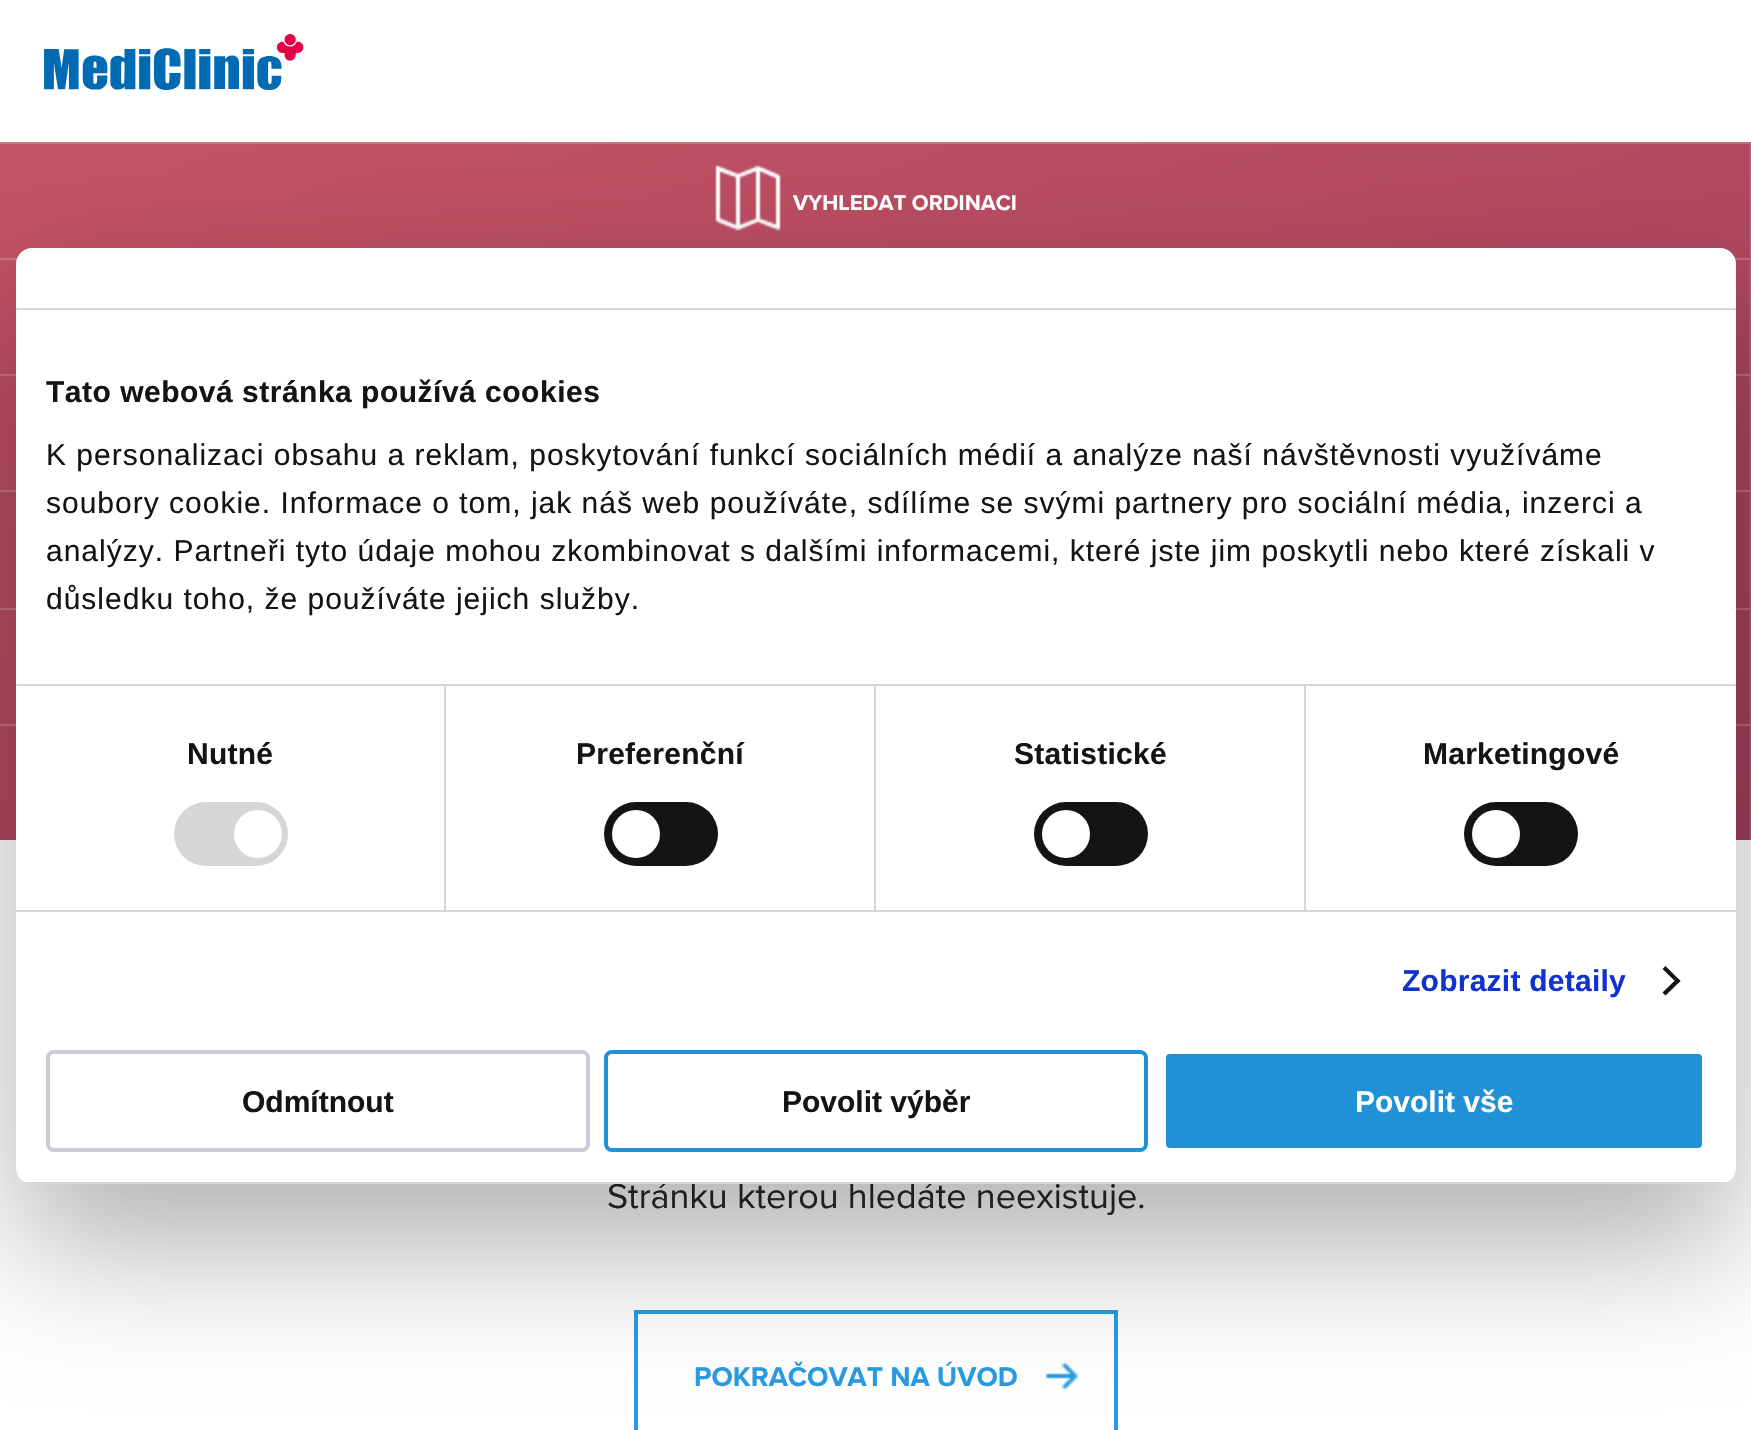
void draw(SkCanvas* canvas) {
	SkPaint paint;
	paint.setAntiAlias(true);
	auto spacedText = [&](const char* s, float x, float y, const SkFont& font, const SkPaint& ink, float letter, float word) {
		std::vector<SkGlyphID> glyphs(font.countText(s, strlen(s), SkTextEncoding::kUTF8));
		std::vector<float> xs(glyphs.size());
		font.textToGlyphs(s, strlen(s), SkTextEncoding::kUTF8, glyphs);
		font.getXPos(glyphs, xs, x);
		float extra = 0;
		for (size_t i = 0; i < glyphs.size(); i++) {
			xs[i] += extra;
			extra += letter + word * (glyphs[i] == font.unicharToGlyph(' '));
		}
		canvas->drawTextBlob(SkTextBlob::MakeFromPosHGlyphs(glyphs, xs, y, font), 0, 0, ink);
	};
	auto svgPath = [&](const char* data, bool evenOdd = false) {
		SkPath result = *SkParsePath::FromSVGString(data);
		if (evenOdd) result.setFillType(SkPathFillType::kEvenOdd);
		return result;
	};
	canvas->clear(0xffffffff);
	canvas->drawImageRect(SkImages::DeferredFromEncodedData(SkData::MakeFromFileName("img1.png")), SkRect::MakeXYWH(44, 34, 260, 56), SkSamplingOptions());
	{
		const SkColor colors[] = {0xffc55365, 0xffa03f5b};
		const float stops[] = {0, 1};
		const SkPoint ends[] = {{636, -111}, {1116, 1093}};
		paint.setShader(SkGradientShader::MakeLinear(ends, colors, stops, 2, SkTileMode::kClamp));
		paint.setAlpha(255);
	}
	canvas->drawRect(SkRect::MakeXYWH(0, 142, 1751, 698), paint);
	paint.setShader(nullptr);
	paint.setColor(0x33ffffff);
	canvas->drawPath(svgPath("M0 142H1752L1750 144H0Z"), paint);
	canvas->drawPath(svgPath("M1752 142V258H1750V144Z"), paint);
	canvas->drawImageRect(SkImages::DeferredFromEncodedData(SkData::MakeFromFileName("img2.png")), SkRect::MakeXYWH(715, 165, 66, 66), SkSamplingOptions());
	SkFont f1(fontMgr->matchFamilyStyle("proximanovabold", SkFontStyle::Bold()), 22);
	f1.setSubpixel(true);
	paint.setColor(0xffffffff);
	canvas->drawString("VYHLEDAT ORDINACI", 793, 210, f1, paint);
	paint.setColor(0x33ffffff);
	canvas->drawPath(svgPath("M0 258H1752L1750 260H0Z"), paint);
	canvas->drawPath(svgPath("M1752 258V374H1750V260Z"), paint);
	canvas->drawPath(svgPath("M0 374H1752L1750 376H0Z"), paint);
	canvas->drawPath(svgPath("M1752 374V490H1750V376Z"), paint);
	canvas->drawPath(svgPath("M0 490H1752L1750 492H0Z"), paint);
	canvas->drawPath(svgPath("M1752 490V608H1750V492Z"), paint);
	canvas->drawPath(svgPath("M0 608H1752L1750 610H0Z"), paint);
	canvas->drawPath(svgPath("M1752 608V724H1750V610Z"), paint);
	canvas->drawPath(svgPath("M0 724H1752L1750 726H0Z"), paint);
	canvas->drawPath(svgPath("M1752 724V840H1750V726Z"), paint);
	SkFont f2(fontMgr->matchFamilyStyle("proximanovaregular", SkFontStyle::Normal()), 36);
	f2.setSubpixel(true);
	paint.setColor(0xff28282e);
	canvas->drawString("Stránku kterou hledáte neexistuje.", 607, 1208, f2, paint);
	paint.setStroke(true);
	paint.setStrokeWidth(4);
	paint.setColor(0xff299be3);
	canvas->drawRect(SkRect::MakeXYWH(636, 1312, 480, 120), paint);
	SkFont f3(fontMgr->matchFamilyStyle("proximanovabold", SkFontStyle::Bold()), 28);
	f3.setSubpixel(true);
	paint.setStroke(false);
	canvas->drawString("POKRAČOVAT NA ÚVOD", 694, 1386, f3, paint);
	canvas->drawImageRect(SkImages::DeferredFromEncodedData(SkData::MakeFromFileName("img3.png")), SkRect::MakeXYWH(1046, 1362, 32, 28), SkSamplingOptions());
	paint.setColor(0x4d000000);
	paint.setMaskFilter(SkMaskFilter::MakeBlur(kNormal_SkBlurStyle, 68));
	canvas->drawRoundRect(SkRect::MakeXYWH(16, 312, 1720, 936), 16, 16, paint);
	paint.setMaskFilter(nullptr);
	paint.setColor(0xffffffff);
	canvas->drawRoundRect(SkRect::MakeXYWH(16, 248, 1720, 936), 16, 16, paint);
	paint.setColor(0xffd6d6d6);
	canvas->drawRect(SkRect::MakeXYWH(16, 308, 1720, 2), paint);
	canvas->drawRect(SkRect::MakeXYWH(16, 684, 1720, 2), paint);
	SkFont f4(fontMgr->matchFamilyStyle("Liberation Sans", SkFontStyle::Bold()), 30);
	f4.setSubpixel(true);
	paint.setColor(0xff141414);
	spacedText("Tato webová stránka používá cookies", 46, 402, f4, paint, 0.5, 0);
	SkFont f5(fontMgr->matchFamilyStyle("Liberation Sans", SkFontStyle::Normal()), 30);
	f5.setSubpixel(true);
	spacedText("K personalizaci obsahu a reklam, poskytování funkcí sociálních médií a analýze naší návštěvnosti využíváme", 46, 465, f5, paint, 1, 0);
	spacedText("soubory cookie. Informace o tom, jak náš web používáte, sdílíme se svými partnery pro sociální média, inzerci a", 46, 513, f5, paint, 1, 0);
	spacedText("analýzy. Partneři tyto údaje mohou zkombinovat s dalšími informacemi, které jste jim poskytli nebo které získali v", 46, 561, f5, paint, 1, 0);
	spacedText("důsledku toho, že používáte jejich služby.", 46, 609, f5, paint, 1, 0);
	paint.setColor(0xffd6d6d6);
	canvas->drawRect(SkRect::MakeXYWH(16, 910, 1720, 2), paint);
	canvas->drawRect(SkRect::MakeXYWH(444, 686, 2, 224), paint);
	paint.setColor(0xff141414);
	spacedText("Nutné", 187, 764, f4, paint, 0.25, 0);
	paint.setColor(0xffd6d6d6);
	canvas->drawRoundRect(SkRect::MakeXYWH(174, 802, 114, 64), 32, 32, paint);
	paint.setColor(0xffffffff);
	canvas->drawCircle(258, 834, 24, paint);
	paint.setColor(0xffd6d6d6);
	canvas->drawRect(SkRect::MakeXYWH(874, 686, 2, 224), paint);
	paint.setColor(0xff141414);
	spacedText("Preferenční", 576, 764, f4, paint, 0.25, 0);
	canvas->drawRoundRect(SkRect::MakeXYWH(604, 802, 114, 64), 32, 32, paint);
	paint.setColor(0xffffffff);
	canvas->drawCircle(636, 834, 24, paint);
	paint.setColor(0xffd6d6d6);
	canvas->drawRect(SkRect::MakeXYWH(1304, 686, 2, 224), paint);
	paint.setColor(0xff141414);
	spacedText("Statistické", 1014, 764, f4, paint, 0.25, 0);
	canvas->drawRoundRect(SkRect::MakeXYWH(1034, 802, 114, 64), 32, 32, paint);
	paint.setColor(0xffffffff);
	canvas->drawCircle(1066, 834, 24, paint);
	paint.setColor(0xff141414);
	spacedText("Marketingové", 1423, 764, f4, paint, 0.25, 0);
	canvas->drawRoundRect(SkRect::MakeXYWH(1464, 802, 114, 64), 32, 32, paint);
	paint.setColor(0xffffffff);
	canvas->drawCircle(1496, 834, 24, paint);
	paint.setColor(0xff1032cf);
	spacedText("Zobrazit detaily", 1402, 991, f4, paint, 0.25, 0);
	paint.setColor(0xff141414);
	canvas->drawPath(svgPath("M1665.5 966L1680.5 981L1677.5 983.5L1662.5 969Z"), paint);
	canvas->drawPath(svgPath("M1677.5 978L1680.5 981L1665.5 995.5L1662.5 992.5Z"), paint);
	canvas->save();
	canvas->clipPath(svgPath("M32 248H1720C1729 248 1736 255 1736 264V1168C1736 1177 1729 1184 1720 1184H32C23 1184 16 1177 16 1168V264C16 255 23 248 32 248Z"), true);
	paint.setColor(0xffd6d6d6);
	canvas->drawRect(SkRect::MakeXYWH(16, 1182, 1720, 2), paint);
	canvas->restore();
	paint.setStroke(true);
	paint.setColor(0xffc9cbd6);
	canvas->drawRoundRect(SkRect::MakeXYWH(48, 1052, 540, 98), 6, 6, paint);
	paint.setStroke(false);
	paint.setColor(0xff141414);
	canvas->drawString("Odmítnout", 242, 1112, f4, paint);
	paint.setStroke(true);
	paint.setColor(0xff2091d6);
	canvas->drawRoundRect(SkRect::MakeXYWH(606, 1052, 540, 98), 6, 6, paint);
	paint.setStroke(false);
	paint.setColor(0xff141414);
	canvas->drawString("Povolit výběr", 782, 1112, f4, paint);
	paint.setColor(0xff2091d6);
	canvas->drawRoundRect(SkRect::MakeXYWH(1164, 1052, 540, 98), 6, 6, paint);
	paint.setStroke(true);
	paint.setColor(0xffffffff);
	canvas->drawRoundRect(SkRect::MakeXYWH(1164, 1052, 540, 98), 6, 6, paint);
	paint.setStroke(false);
	canvas->drawString("Povolit vše", 1355, 1112, f4, paint);
}
